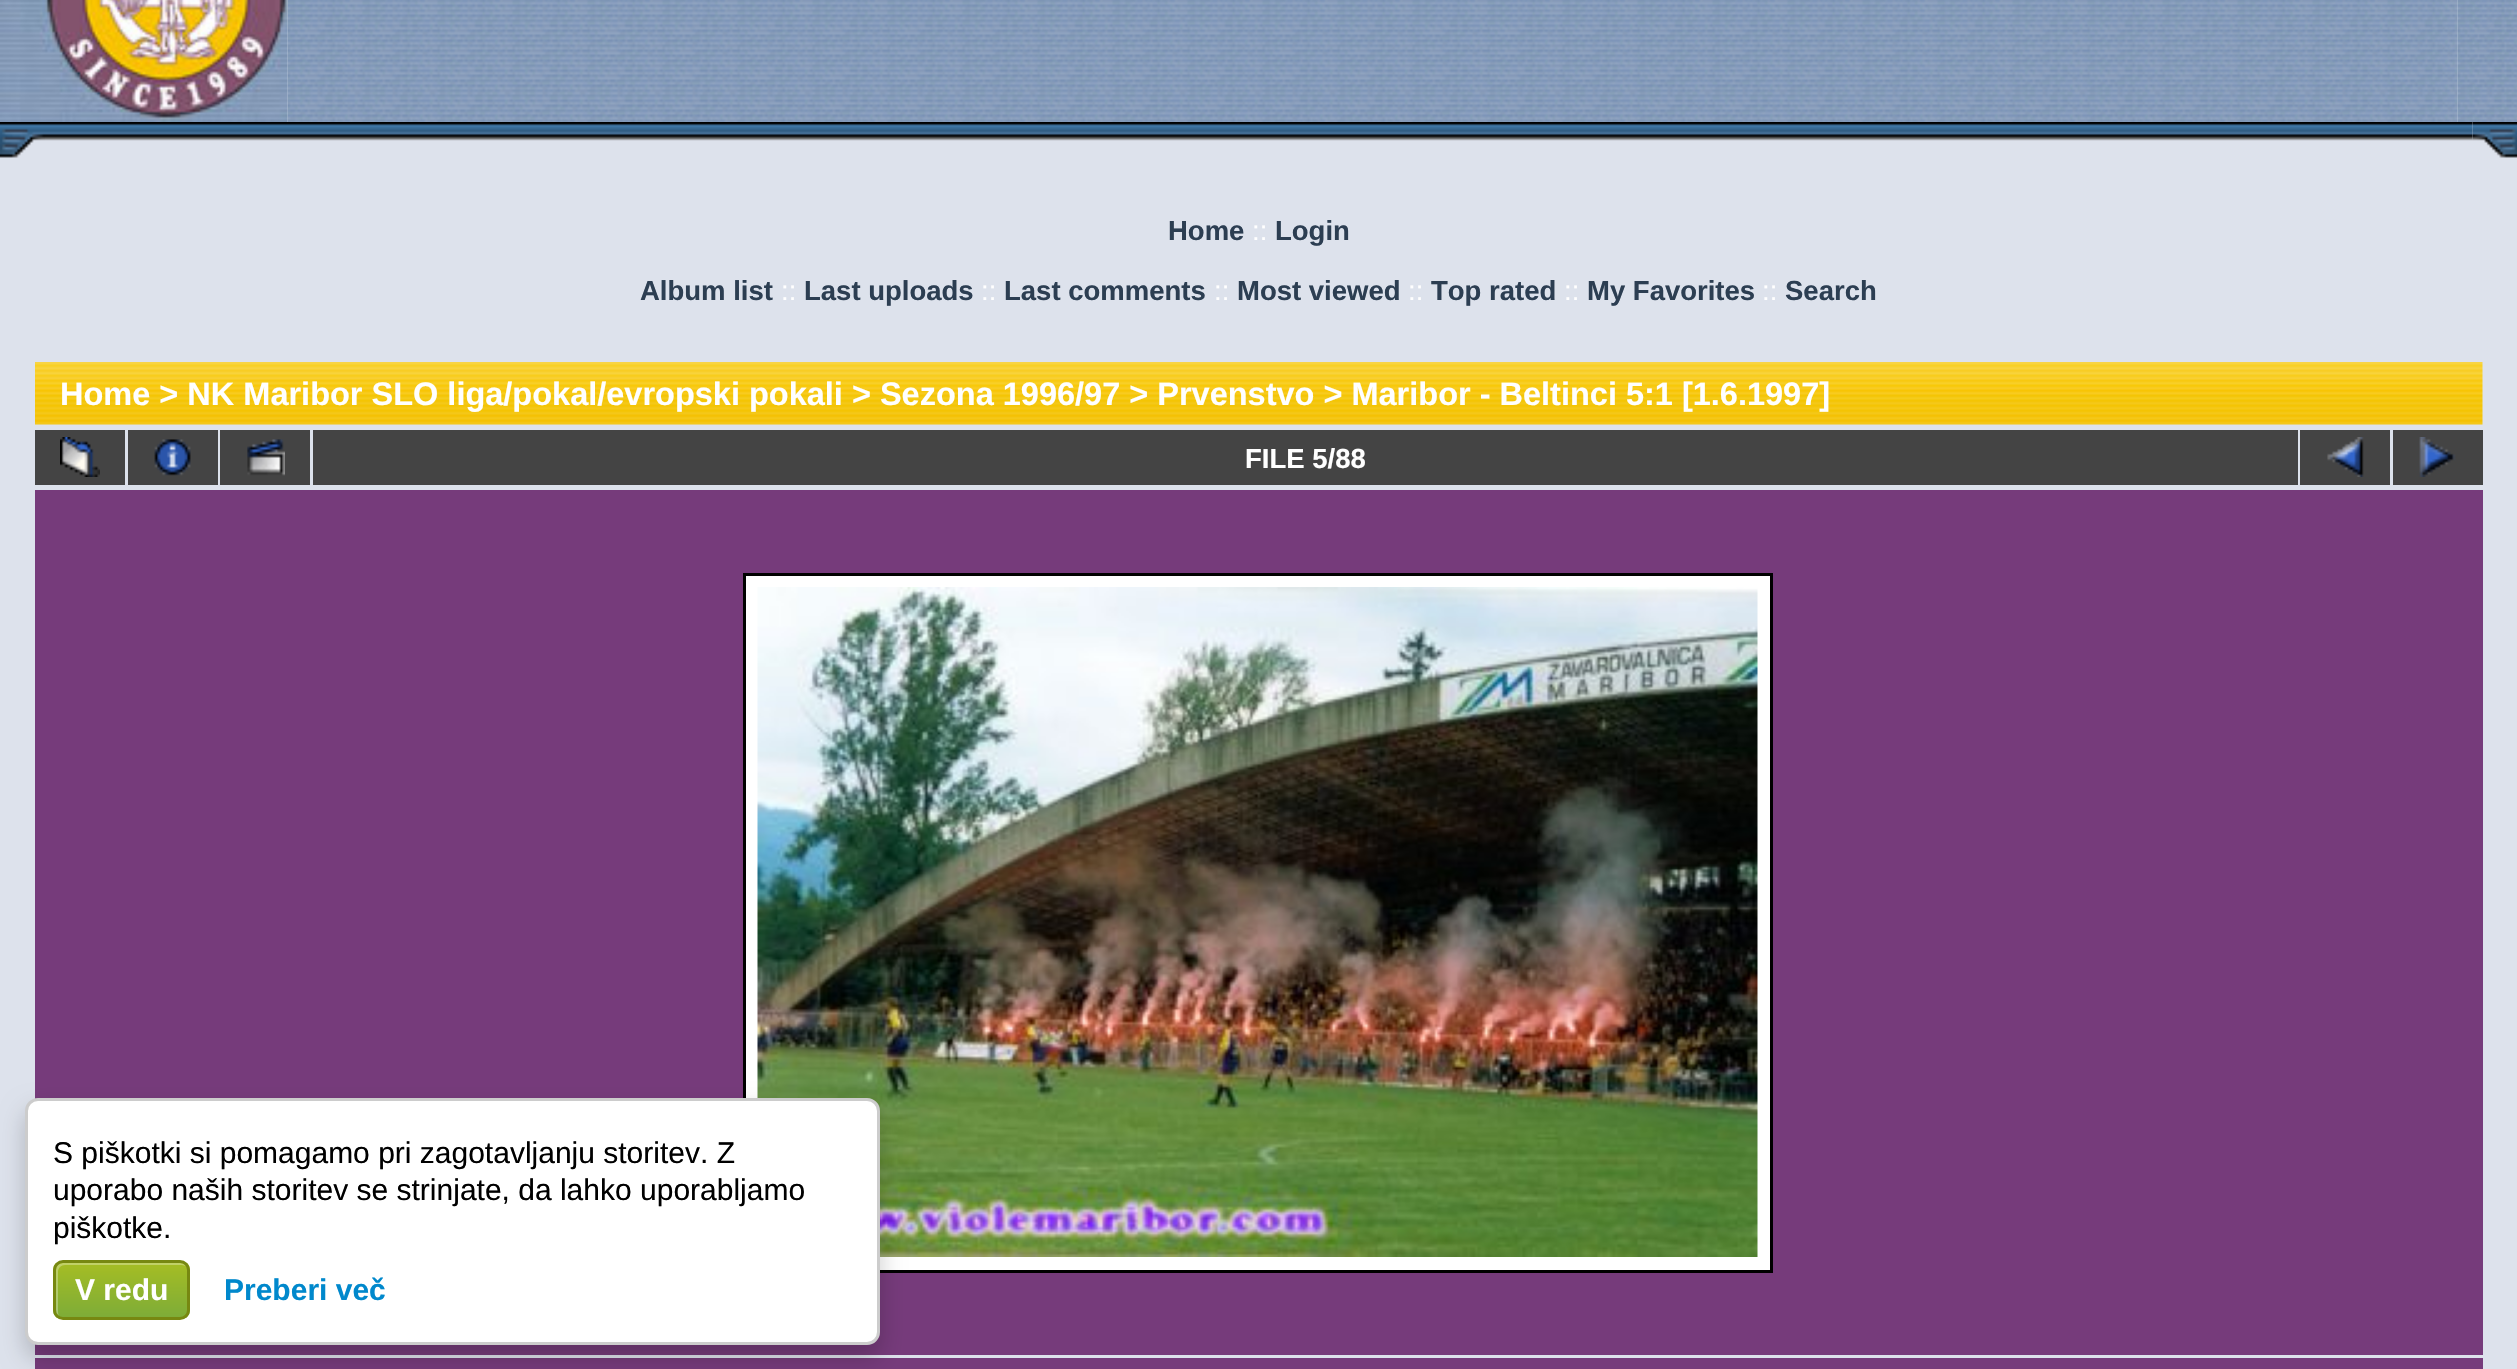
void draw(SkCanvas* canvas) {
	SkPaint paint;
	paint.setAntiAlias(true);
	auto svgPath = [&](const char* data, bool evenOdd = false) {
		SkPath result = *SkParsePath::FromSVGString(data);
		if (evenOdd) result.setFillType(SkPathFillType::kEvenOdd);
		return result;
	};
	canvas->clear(0xffdde2ec);
	canvas->drawImageRect(SkImages::DeferredFromEncodedData(SkData::MakeFromFileName("img2.png")), SkRect::MakeXYWH(287, 0, 2171, 122), SkSamplingOptions());
	canvas->drawImageRect(SkImages::DeferredFromEncodedData(SkData::MakeFromFileName("img1.png")), SkRect::MakeXYWH(0, 0, 288, 122), SkSamplingOptions());
	canvas->drawImageRect(SkImages::DeferredFromEncodedData(SkData::MakeFromFileName("img3.png")), SkRect::MakeXYWH(2457, 0, 60, 122), SkSamplingOptions());
	canvas->drawImageRect(SkImages::DeferredFromEncodedData(SkData::MakeFromFileName("img4.png")), SkRect::MakeXYWH(0, 122, 45, 36), SkSamplingOptions());
	canvas->drawImageRect(SkImages::DeferredFromEncodedData(SkData::MakeFromFileName("img5.png")), SkRect::MakeXYWH(45, 122, 2428, 19), SkSamplingOptions());
	canvas->drawImageRect(SkImages::DeferredFromEncodedData(SkData::MakeFromFileName("img6.png")), SkRect::MakeXYWH(2472, 122, 45, 36), SkSamplingOptions());
	SkFont f1(fontMgr->matchFamilyStyle("Liberation Sans", SkFontStyle::Bold()), 27.5);
	f1.setSubpixel(true);
	paint.setColor(0xff2c3e52);
	canvas->drawString("Home", 1168, 240, f1, paint);
	SkFont f2(fontMgr->matchFamilyStyle("Liberation Sans", SkFontStyle::Normal()), 27.5);
	f2.setSubpixel(true);
	paint.setColor(0xffffffff);
	canvas->drawString("::", 1252, 240, f2, paint);
	paint.setColor(0xff2c3e52);
	canvas->drawString("Login", 1275, 240, f1, paint);
	canvas->drawString("Album list", 640, 300, f1, paint);
	paint.setColor(0xffffffff);
	canvas->drawString("::", 781, 300, f2, paint);
	paint.setColor(0xff2c3e52);
	canvas->drawString("Last uploads", 804, 300, f1, paint);
	paint.setColor(0xffffffff);
	canvas->drawString("::", 981, 300, f2, paint);
	paint.setColor(0xff2c3e52);
	canvas->drawString("Last comments", 1004, 300, f1, paint);
	paint.setColor(0xffffffff);
	canvas->drawString("::", 1214, 300, f2, paint);
	paint.setColor(0xff2c3e52);
	canvas->drawString("Most viewed", 1237, 300, f1, paint);
	paint.setColor(0xffffffff);
	canvas->drawString("::", 1408, 300, f2, paint);
	paint.setColor(0xff2c3e52);
	canvas->drawString("Top rated", 1431, 300, f1, paint);
	paint.setColor(0xffffffff);
	canvas->drawString("::", 1564, 300, f2, paint);
	paint.setColor(0xff2c3e52);
	canvas->drawString("My Favorites", 1587, 300, f1, paint);
	paint.setColor(0xffffffff);
	canvas->drawString("::", 1762, 300, f2, paint);
	paint.setColor(0xff2c3e52);
	canvas->drawString("Search", 1785, 300, f1, paint);
	canvas->drawImageRect(SkImages::DeferredFromEncodedData(SkData::MakeFromFileName("img7.png")), SkRect::MakeXYWH(35, 362, 2448, 63), SkSamplingOptions());
	SkFont f3(fontMgr->matchFamilyStyle("Liberation Sans", SkFontStyle::Bold()), 32.5);
	f3.setSubpixel(true);
	paint.setColor(0xffffffff);
	canvas->drawString("Home > NK Maribor SLO liga/pokal/evropski pokali > Sezona 1996/97 > Prvenstvo > Maribor - Beltinci 5:1 [1.6.1997]", 60, 405, f3, paint);
	paint.setColor(0xff444444);
	canvas->drawRect(SkRect::MakeXYWH(35, 430, 90, 55), paint);
	canvas->drawImageRect(SkImages::DeferredFromEncodedData(SkData::MakeFromFileName("img8.png")), SkRect::MakeXYWH(60, 437, 40, 40), SkSamplingOptions());
	canvas->drawRect(SkRect::MakeXYWH(128, 430, 90, 55), paint);
	canvas->drawImageRect(SkImages::DeferredFromEncodedData(SkData::MakeFromFileName("img9.png")), SkRect::MakeXYWH(154, 439, 37, 37), SkSamplingOptions());
	canvas->drawRect(SkRect::MakeXYWH(220, 430, 90, 55), paint);
	canvas->drawImageRect(SkImages::DeferredFromEncodedData(SkData::MakeFromFileName("img10.png")), SkRect::MakeXYWH(247, 439, 38, 37), SkSamplingOptions());
	canvas->drawRect(SkRect::MakeXYWH(313, 430, 1985, 55), paint);
	paint.setColor(0xffffffff);
	canvas->drawString("FILE 5/88", 1245, 468, f1, paint);
	paint.setColor(0xff444444);
	canvas->drawRect(SkRect::MakeXYWH(2300, 430, 90, 55), paint);
	canvas->drawImageRect(SkImages::DeferredFromEncodedData(SkData::MakeFromFileName("img11.png")), SkRect::MakeXYWH(2327, 437, 37, 40), SkSamplingOptions());
	canvas->drawRect(SkRect::MakeXYWH(2393, 430, 90, 55), paint);
	canvas->drawImageRect(SkImages::DeferredFromEncodedData(SkData::MakeFromFileName("img12.png")), SkRect::MakeXYWH(2419, 437, 37, 40), SkSamplingOptions());
	paint.setColor(0xff763b7b);
	canvas->drawRect(SkRect::MakeXYWH(35, 490, 2448, 865), paint);
	paint.setColor(0xffffffff);
	canvas->drawRect(SkRect::MakeXYWH(744.5, 574.5, 1027, 697), paint);
	paint.setStroke(true);
	paint.setStrokeWidth(3);
	paint.setColor(0xff000000);
	canvas->drawRect(SkRect::MakeXYWH(744.5, 574.5, 1027, 697), paint);
	canvas->drawImageRect(SkImages::DeferredFromEncodedData(SkData::MakeFromFileName("img13.png")), SkRect::MakeXYWH(757, 587, 1001, 670), SkSamplingOptions());
	paint.setStroke(false);
	paint.setColor(0xff763b7b);
	canvas->drawRect(SkRect::MakeXYWH(35, 1358, 2448, 11), paint);
	paint.setColor(0x33000000);
	paint.setMaskFilter(SkMaskFilter::MakeBlur(kNormal_SkBlurStyle, 12.5));
	canvas->drawRoundRect(SkRect::MakeXYWH(25, 1110, 855, 248), 13, 13, paint);
	paint.setMaskFilter(nullptr);
	paint.setColor(0xffffffff);
	canvas->drawRoundRect(SkRect::MakeXYWH(26.5, 1099.5, 852, 244), 11.5, 11.5, paint);
	paint.setStroke(true);
	paint.setColor(0xffcccccc);
	canvas->drawRoundRect(SkRect::MakeXYWH(26.5, 1099.5, 852, 244), 11.5, 11.5, paint);
	SkFont f4(fontMgr->matchFamilyStyle("Liberation Sans", SkFontStyle::Normal()), 30);
	f4.setSubpixel(true);
	paint.setStroke(false);
	paint.setColor(0xff000000);
	canvas->drawString("S piškotki si pomagamo pri zagotavljanju storitev. Z", 53, 1163, f4, paint);
	canvas->drawString("uporabo naših storitev se strinjate, da lahko uporabljamo", 53, 1200, f4, paint);
	canvas->drawString("piškotke.", 53, 1238, f4, paint);
	canvas->save();
	canvas->clipPath(svgPath("M63 1260H180C185.5 1260 190 1264.5 190 1270V1310C190 1315.5 185.5 1320 180 1320H63C57.5 1320 53 1315.5 53 1310V1270C53 1264.5 57.5 1260 63 1260Z"), true);
	{
		const SkColor colors[] = {0xffa5bd24, 0xff7dac38};
		const float stops[] = {0, 1};
		const SkPoint ends[] = {{121, 1263}, {121, 1318}};
		paint.setShader(SkGradientShader::MakeLinear(ends, colors, stops, 2, SkTileMode::kClamp));
		paint.setAlpha(255);
	}
	canvas->drawRect(SkRect::MakeXYWH(53, 1263, 137, 55), paint);
	canvas->restore();
	paint.setShader(nullptr);
	paint.setColor(0x4dffffff);
	canvas->drawPath(svgPath("M65 1265H182L186 1266C185 1264 182 1263 180 1263H63C59 1263 55 1267 55 1271V1310C55 1313 57 1316 59 1317C59 1316 58 1314 58 1312V1272C58 1268 61 1265 65 1265Z"), paint);
	paint.setStroke(true);
	paint.setColor(0xff778811);
	canvas->drawRoundRect(SkRect::MakeXYWH(54.5, 1261.5, 134, 57), 8.5, 8.5, paint);
	SkFont f5(fontMgr->matchFamilyStyle("Liberation Sans", SkFontStyle::Bold()), 30);
	f5.setSubpixel(true);
	paint.setStroke(false);
	paint.setColor(0xffffffff);
	canvas->drawString("V redu", 75, 1300, f5, paint);
	paint.setColor(0xff0088cc);
	canvas->drawString("Preberi več", 224, 1300, f5, paint);
}
